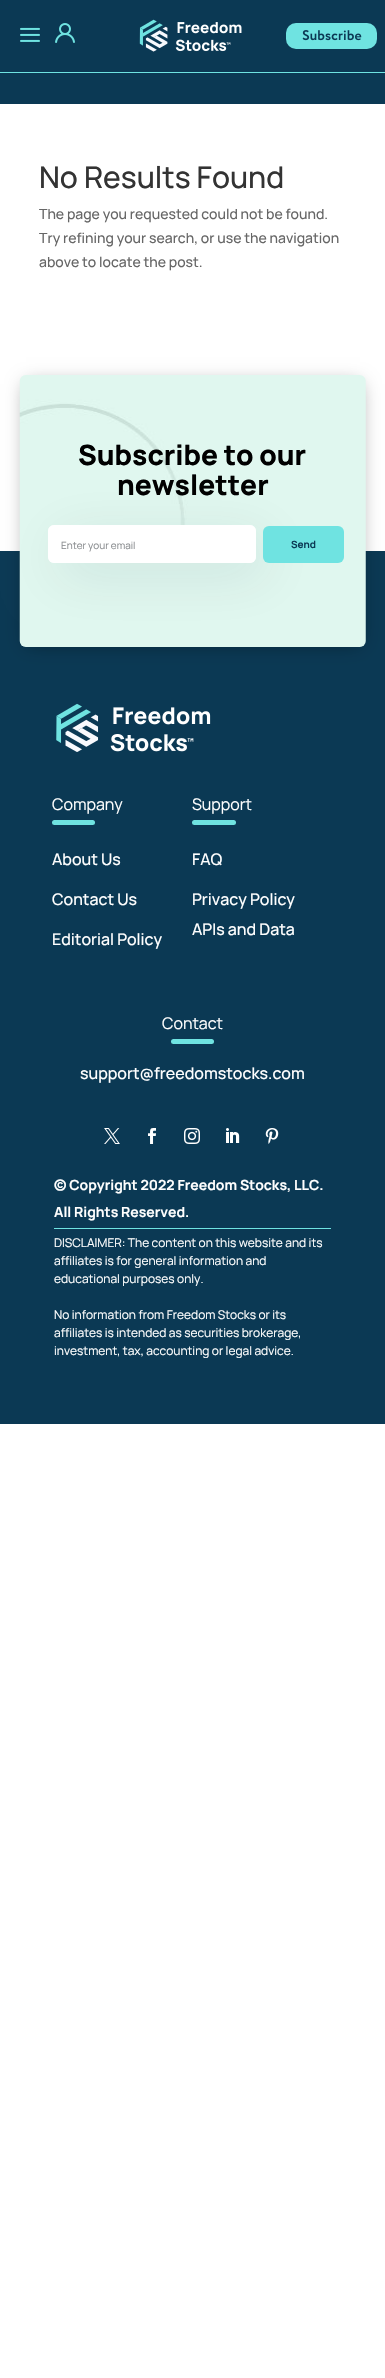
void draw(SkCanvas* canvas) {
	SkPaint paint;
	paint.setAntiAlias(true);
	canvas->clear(0xffffffff);
	paint.setColor(0xff0b3954);
	canvas->drawRect(SkRect::MakeXYWH(0, 0, 385, 72), paint);
	paint.setColor(0xff6fe3e1);
	canvas->drawRect(SkRect::MakeXYWH(0, 72, 385, 1), paint);
	canvas->drawImageRect(SkImages::DeferredFromEncodedData(SkData::MakeFromFileName("img1.png")), SkRect::MakeXYWH(20, 27, 20, 15), SkSamplingOptions());
	canvas->drawImageRect(SkImages::DeferredFromEncodedData(SkData::MakeFromFileName("img2.png")), SkRect::MakeXYWH(55, 23, 20, 20), SkSamplingOptions());
	canvas->drawImageRect(SkImages::DeferredFromEncodedData(SkData::MakeFromFileName("img3.png")), SkRect::MakeXYWH(139, 19, 103, 33), SkSamplingOptions());
	canvas->drawRoundRect(SkRect::MakeXYWH(286, 23, 91, 26), 10, 10, paint);
	canvas->drawImageRect(SkImages::DeferredFromEncodedData(SkData::MakeFromFileName("img4.png")), SkRect::MakeXYWH(302, 30, 60, 11), SkSamplingOptions());
	paint.setColor(0xff0b3954);
	canvas->drawRect(SkRect::MakeXYWH(0, 73, 385, 31), paint);
	SkFont f1(fontMgr->matchFamilyStyle("Manrope", SkFontStyle(200, SkFontStyle::kNormal_Width, SkFontStyle::kUpright_Slant)), 30);
	f1.setSubpixel(true);
	paint.setColor(0xff333333);
	canvas->drawString("No Results Found", 39, 188, f1, paint);
	SkFont f2(fontMgr->matchFamilyStyle("Manrope", SkFontStyle(200, SkFontStyle::kNormal_Width, SkFontStyle::kUpright_Slant)), 14);
	f2.setSubpixel(true);
	paint.setColor(0xff666666);
	canvas->drawString("The page you requested could not be found.", 39, 219, f2, paint);
	canvas->drawString("Try refining your search, or use the navigation", 39, 243, f2, paint);
	canvas->drawString("above to locate the post.", 39, 267, f2, paint);
	paint.setColor(0xff0b3954);
	canvas->drawRect(SkRect::MakeXYWH(0, 551, 385, 873), paint);
	paint.setColor(0x69000000);
	paint.setMaskFilter(SkMaskFilter::MakeBlur(kNormal_SkBlurStyle, 9));
	canvas->drawRect(SkRect::MakeXYWH(26, 384, 334, 260), paint);
	paint.setMaskFilter(nullptr);
	canvas->drawImageRect(SkImages::DeferredFromEncodedData(SkData::MakeFromFileName("img5.png")), SkRect::MakeXYWH(19, 375, 347, 272), SkSamplingOptions());
	SkFont f3(fontMgr->matchFamilyStyle("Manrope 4", SkFontStyle(200, SkFontStyle::kNormal_Width, SkFontStyle::kUpright_Slant)), 28);
	f3.setSubpixel(true);
	paint.setColor(0xff000000);
	canvas->drawString("Subscribe to our", 78, 465, f3, paint);
	canvas->drawString("newsletter", 117, 495, f3, paint);
	paint.setColor(0x1a153132);
	paint.setMaskFilter(SkMaskFilter::MakeBlur(kNormal_SkBlurStyle, 27));
	canvas->drawRoundRect(SkRect::MakeXYWH(58, 537, 208, 38), 6, 6, paint);
	paint.setMaskFilter(nullptr);
	paint.setColor(0xffffffff);
	canvas->drawRoundRect(SkRect::MakeXYWH(48, 525, 208, 38), 6, 6, paint);
	paint.setStroke(true);
	paint.setStrokeWidth(1);
	paint.setColor(0xbfffffff);
	canvas->drawRoundRect(SkRect::MakeXYWH(48.5, 525.5, 207, 37), 5.5, 5.5, paint);
	SkFont f4(fontMgr->matchFamilyStyle("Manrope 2", SkFontStyle(200, SkFontStyle::kNormal_Width, SkFontStyle::kUpright_Slant)), 10);
	f4.setSubpixel(true);
	paint.setStroke(false);
	paint.setColor(0xff888b8e);
	canvas->drawString("Enter your email", 61, 549, f4, paint);
	paint.setColor(0xff6fe3e1);
	canvas->drawRoundRect(SkRect::MakeXYWH(263, 526, 81, 37), 6, 6, paint);
	SkFont f5(fontMgr->matchFamilyStyle("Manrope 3", SkFontStyle(200, SkFontStyle::kNormal_Width, SkFontStyle::kUpright_Slant)), 10);
	f5.setSubpixel(true);
	paint.setColor(0xff0b3954);
	canvas->drawString("Send", 291, 548, f5, paint);
	canvas->drawImageRect(SkImages::DeferredFromEncodedData(SkData::MakeFromFileName("img6.png")), SkRect::MakeXYWH(56, 703, 155, 49), SkSamplingOptions());
	SkFont f6(fontMgr->matchFamilyStyle("Manrope 2", SkFontStyle(200, SkFontStyle::kNormal_Width, SkFontStyle::kUpright_Slant)), 16);
	f6.setSubpixel(true);
	paint.setColor(0xffffffff);
	canvas->drawString("Company", 52, 810, f6, paint);
	paint.setColor(0xff6fe3e1);
	canvas->drawRoundRect(SkRect::MakeXYWH(52, 820, 43, 5), 2.5, 2.5, paint);
	SkFont f7(fontMgr->matchFamilyStyle("Manrope", SkFontStyle(200, SkFontStyle::kNormal_Width, SkFontStyle::kUpright_Slant)), 16);
	f7.setSubpixel(true);
	paint.setColor(0xffffffff);
	canvas->drawString("About Us", 52, 865, f7, paint);
	canvas->drawString("Contact Us", 52, 905, f7, paint);
	canvas->drawString("Editorial Policy", 52, 945, f7, paint);
	canvas->drawString("Support", 192, 810, f6, paint);
	paint.setColor(0xff6fe3e1);
	canvas->drawRoundRect(SkRect::MakeXYWH(192, 820, 44, 5), 2.5, 2.5, paint);
	paint.setColor(0xffffffff);
	canvas->drawString("FAQ", 192, 865, f7, paint);
	canvas->drawString("Privacy Policy", 192, 905, f7, paint);
	canvas->drawString("APIs and Data", 192, 935, f7, paint);
	canvas->drawString("Contact", 162, 1029, f6, paint);
	paint.setColor(0xff6fe3e1);
	canvas->drawRoundRect(SkRect::MakeXYWH(171, 1039, 43, 5), 2.5, 2.5, paint);
	paint.setColor(0xffffffff);
	canvas->drawString("support@freedomstocks.com", 80, 1079, f7, paint);
	canvas->drawImageRect(SkImages::DeferredFromEncodedData(SkData::MakeFromFileName("img7.png")), SkRect::MakeXYWH(104, 1128, 16, 16), SkSamplingOptions());
	canvas->drawImageRect(SkImages::DeferredFromEncodedData(SkData::MakeFromFileName("img8.png")), SkRect::MakeXYWH(148, 1128, 8, 16), SkSamplingOptions());
	canvas->drawImageRect(SkImages::DeferredFromEncodedData(SkData::MakeFromFileName("img9.png")), SkRect::MakeXYWH(184, 1128, 16, 16), SkSamplingOptions());
	canvas->drawImageRect(SkImages::DeferredFromEncodedData(SkData::MakeFromFileName("img10.png")), SkRect::MakeXYWH(226, 1128, 14, 15), SkSamplingOptions());
	canvas->drawImageRect(SkImages::DeferredFromEncodedData(SkData::MakeFromFileName("img11.png")), SkRect::MakeXYWH(265, 1128, 14, 16), SkSamplingOptions());
	paint.setColor(0xff6fe3e1);
	canvas->drawRect(SkRect::MakeXYWH(54, 1228, 277, 1), paint);
	SkFont f8(fontMgr->matchFamilyStyle("Manrope 3", SkFontStyle(200, SkFontStyle::kNormal_Width, SkFontStyle::kUpright_Slant)), 14);
	f8.setSubpixel(true);
	paint.setColor(0xffffffff);
	canvas->drawString("© Copyright 2022 Freedom Stocks, LLC.", 54, 1190, f8, paint);
	canvas->drawString("All Rights Reserved.", 54, 1217, f8, paint);
	SkFont f9(fontMgr->matchFamilyStyle("Manrope 2", SkFontStyle(200, SkFontStyle::kNormal_Width, SkFontStyle::kUpright_Slant)), 12);
	f9.setSubpixel(true);
	canvas->drawString("DISCLAIMER: The content on this website and its", 54, 1247, f9, paint);
	canvas->drawString("affiliates is for general information and", 54, 1265, f9, paint);
	canvas->drawString("educational purposes only.", 54, 1283, f9, paint);
	canvas->drawString("No information from Freedom Stocks or its", 54, 1319, f9, paint);
	canvas->drawString("affiliates is intended as securities brokerage,", 54, 1337, f9, paint);
	canvas->drawString("investment, tax, accounting or legal advice.", 54, 1355, f9, paint);
}
